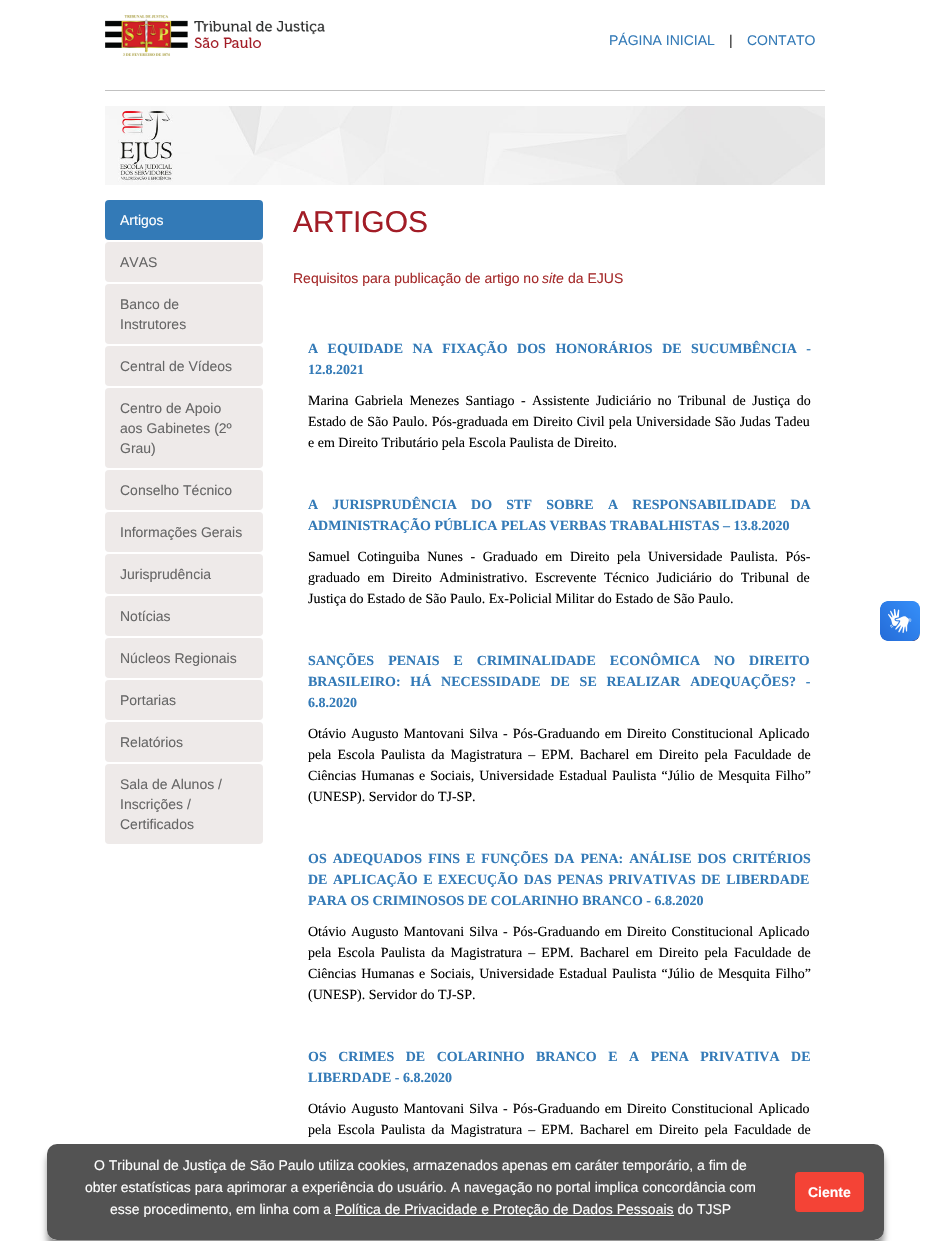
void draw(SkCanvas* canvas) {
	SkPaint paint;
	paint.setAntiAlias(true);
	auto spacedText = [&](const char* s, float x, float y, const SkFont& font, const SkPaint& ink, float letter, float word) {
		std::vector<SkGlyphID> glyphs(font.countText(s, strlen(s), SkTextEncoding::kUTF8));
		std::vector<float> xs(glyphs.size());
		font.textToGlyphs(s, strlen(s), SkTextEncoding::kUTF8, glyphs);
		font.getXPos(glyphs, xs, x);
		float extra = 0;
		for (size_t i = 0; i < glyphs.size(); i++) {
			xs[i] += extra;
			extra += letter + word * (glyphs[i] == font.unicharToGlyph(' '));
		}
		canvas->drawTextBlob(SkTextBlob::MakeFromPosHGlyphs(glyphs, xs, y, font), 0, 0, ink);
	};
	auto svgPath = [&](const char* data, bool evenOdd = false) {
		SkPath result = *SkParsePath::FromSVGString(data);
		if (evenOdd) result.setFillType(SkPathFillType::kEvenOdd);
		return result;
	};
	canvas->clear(0xffffffff);
	canvas->drawImageRect(SkImages::DeferredFromEncodedData(SkData::MakeFromFileName("img1.png")), SkRect::MakeXYWH(105, 15, 220, 41), SkSamplingOptions());
	SkFont f1(fontMgr->matchFamilyStyle("Liberation Sans", SkFontStyle::Normal()), 14);
	f1.setSubpixel(true);
	paint.setColor(0xff337ab7);
	canvas->drawString("PÁGINA INICIAL", 609, 45, f1, paint);
	paint.setColor(0xff333333);
	canvas->drawString("|", 729, 45, f1, paint);
	paint.setColor(0xff337ab7);
	canvas->drawString("CONTATO", 747, 45, f1, paint);
	paint.setColor(0xffc1c1c1);
	canvas->drawRect(SkRect::MakeXYWH(105, 90, 720, 1), paint);
	canvas->drawImageRect(SkImages::DeferredFromEncodedData(SkData::MakeFromFileName("img2.png")), SkRect::MakeXYWH(105, 106, 720, 79), SkSamplingOptions());
	paint.setColor(0xff337ab7);
	canvas->drawRoundRect(SkRect::MakeXYWH(105, 200, 158, 40), 4, 4, paint);
	paint.setColor(0xffffffff);
	canvas->drawString("Artigos", 120, 225, f1, paint);
	paint.setColor(0xffeeeae9);
	canvas->drawRoundRect(SkRect::MakeXYWH(105, 242, 158, 40), 4, 4, paint);
	paint.setColor(0xff666666);
	canvas->drawString("AVAS", 120, 267, f1, paint);
	paint.setColor(0xffeeeae9);
	canvas->drawRoundRect(SkRect::MakeXYWH(105, 284, 158, 60), 4, 4, paint);
	paint.setColor(0xff666666);
	canvas->drawString("Banco de", 120, 309, f1, paint);
	canvas->drawString("Instrutores", 120, 329, f1, paint);
	paint.setColor(0xffeeeae9);
	canvas->drawRoundRect(SkRect::MakeXYWH(105, 346, 158, 40), 4, 4, paint);
	paint.setColor(0xff666666);
	canvas->drawString("Central de Vídeos", 120, 371, f1, paint);
	paint.setColor(0xffeeeae9);
	canvas->drawRoundRect(SkRect::MakeXYWH(105, 388, 158, 80), 4, 4, paint);
	paint.setColor(0xff666666);
	canvas->drawString("Centro de Apoio", 120, 413, f1, paint);
	canvas->drawString("aos Gabinetes (2º", 120, 433, f1, paint);
	canvas->drawString("Grau)", 120, 453, f1, paint);
	paint.setColor(0xffeeeae9);
	canvas->drawRoundRect(SkRect::MakeXYWH(105, 470, 158, 40), 4, 4, paint);
	paint.setColor(0xff666666);
	canvas->drawString("Conselho Técnico", 120, 495, f1, paint);
	paint.setColor(0xffeeeae9);
	canvas->drawRoundRect(SkRect::MakeXYWH(105, 512, 158, 40), 4, 4, paint);
	paint.setColor(0xff666666);
	canvas->drawString("Informações Gerais", 120, 537, f1, paint);
	paint.setColor(0xffeeeae9);
	canvas->drawRoundRect(SkRect::MakeXYWH(105, 554, 158, 40), 4, 4, paint);
	paint.setColor(0xff666666);
	canvas->drawString("Jurisprudência", 120, 579, f1, paint);
	paint.setColor(0xffeeeae9);
	canvas->drawRoundRect(SkRect::MakeXYWH(105, 596, 158, 40), 4, 4, paint);
	paint.setColor(0xff666666);
	canvas->drawString("Notícias", 120, 621, f1, paint);
	paint.setColor(0xffeeeae9);
	canvas->drawRoundRect(SkRect::MakeXYWH(105, 638, 158, 40), 4, 4, paint);
	paint.setColor(0xff666666);
	canvas->drawString("Núcleos Regionais", 120, 663, f1, paint);
	paint.setColor(0xffeeeae9);
	canvas->drawRoundRect(SkRect::MakeXYWH(105, 680, 158, 40), 4, 4, paint);
	paint.setColor(0xff666666);
	canvas->drawString("Portarias", 120, 705, f1, paint);
	paint.setColor(0xffeeeae9);
	canvas->drawRoundRect(SkRect::MakeXYWH(105, 722, 158, 40), 4, 4, paint);
	paint.setColor(0xff666666);
	canvas->drawString("Relatórios", 120, 747, f1, paint);
	paint.setColor(0xffeeeae9);
	canvas->drawRoundRect(SkRect::MakeXYWH(105, 764, 158, 80), 4, 4, paint);
	paint.setColor(0xff666666);
	canvas->drawString("Sala de Alunos /", 120, 789, f1, paint);
	canvas->drawString("Inscrições /", 120, 809, f1, paint);
	canvas->drawString("Certificados", 120, 829, f1, paint);
	SkFont f2(fontMgr->matchFamilyStyle("Liberation Sans", SkFontStyle::Normal()), 30);
	f2.setSubpixel(true);
	paint.setColor(0xffa21c26);
	canvas->drawString("ARTIGOS", 293, 232, f2, paint);
	paint.setColor(0xffa52a2a);
	canvas->drawString("Requisitos para publicação de artigo no", 293, 283, f1, paint);
	SkFont f3(fontMgr->matchFamilyStyle("Liberation Sans", SkFontStyle::Italic()), 14);
	f3.setSubpixel(true);
	canvas->drawString("site", 542, 283, f3, paint);
	canvas->drawString("da EJUS", 568, 283, f1, paint);
	SkFont f4(fontMgr->matchFamilyStyle("Liberation Serif", SkFontStyle::Bold()), 14);
	f4.setSubpixel(true);
	paint.setColor(0xff337ab7);
	spacedText("A EQUIDADE NA FIXAÇÃO DOS HONORÁRIOS DE SUCUMBÊNCIA -", 308, 353, f4, paint, 0, 6);
	canvas->drawString("12.8.2021", 308, 374, f4, paint);
	SkFont f5(fontMgr->matchFamilyStyle("Liberation Serif", SkFontStyle::Normal()), 14);
	f5.setSubpixel(true);
	paint.setColor(0xff000000);
	spacedText("Marina Gabriela Menezes Santiago - Assistente Judiciário no Tribunal de Justiça do", 308, 405, f5, paint, 0, 2.9);
	spacedText("Estado de São Paulo. Pós-graduada em Direito Civil pela Universidade São Judas Tadeu", 308, 426, f5, paint, 0, 0.5);
	canvas->drawString("e em Direito Tributário pela Escola Paulista de Direito.", 308, 447, f5, paint);
	paint.setColor(0xff337ab7);
	spacedText("A JURISPRUDÊNCIA DO STF SOBRE A RESPONSABILIDADE DA", 308, 509, f4, paint, 0, 10.75);
	canvas->drawString("ADMINISTRAÇÃO PÚBLICA PELAS VERBAS TRABALHISTAS – 13.8.2020", 308, 530, f4, paint);
	paint.setColor(0xff000000);
	spacedText("Samuel Cotinguiba Nunes - Graduado em Direito pela Universidade Paulista. Pós-", 308, 561, f5, paint, 0, 4);
	spacedText("graduado em Direito Administrativo. Escrevente Técnico Judiciário do Tribunal de", 308, 582, f5, paint, 0, 4);
	canvas->drawString("Justiça do Estado de São Paulo. Ex-Policial Militar do Estado de São Paulo.", 308, 603, f5, paint);
	paint.setColor(0xff337ab7);
	spacedText("SANÇÕES PENAIS E CRIMINALIDADE ECONÔMICA NO DIREITO", 308, 665, f4, paint, 0, 10.5);
	spacedText("BRASILEIRO: HÁ NECESSIDADE DE SE REALIZAR ADEQUAÇÕES? -", 308, 686, f4, paint, 0, 6.25);
	canvas->drawString("6.8.2020", 308, 707, f4, paint);
	paint.setColor(0xff000000);
	spacedText("Otávio Augusto Mantovani Silva - Pós-Graduando em Direito Constitucional Aplicado", 308, 738, f5, paint, 0, 1.5);
	spacedText("pela Escola Paulista da Magistratura – EPM. Bacharel em Direito pela Faculdade de", 308, 759, f5, paint, 0, 2.6);
	spacedText("Ciências Humanas e Sociais, Universidade Estadual Paulista “Júlio de Mesquita Filho”", 308, 780, f5, paint, 0, 1.5);
	canvas->drawString("(UNESP). Servidor do TJ-SP.", 308, 801, f5, paint);
	paint.setColor(0xff337ab7);
	spacedText("OS ADEQUADOS FINS E FUNÇÕES DA PENA: ANÁLISE DOS CRITÉRIOS", 308, 863, f4, paint, 0, 2.5);
	spacedText("DE APLICAÇÃO E EXECUÇÃO DAS PENAS PRIVATIVAS DE LIBERDADE", 308, 884, f4, paint, 0, 2);
	canvas->drawString("PARA OS CRIMINOSOS DE COLARINHO BRANCO - 6.8.2020", 308, 905, f4, paint);
	paint.setColor(0xff000000);
	spacedText("Otávio Augusto Mantovani Silva - Pós-Graduando em Direito Constitucional Aplicado", 308, 936, f5, paint, 0, 1.5);
	spacedText("pela Escola Paulista da Magistratura – EPM. Bacharel em Direito pela Faculdade de", 308, 957, f5, paint, 0, 2.6);
	spacedText("Ciências Humanas e Sociais, Universidade Estadual Paulista “Júlio de Mesquita Filho”", 308, 978, f5, paint, 0, 1.5);
	canvas->drawString("(UNESP). Servidor do TJ-SP.", 308, 999, f5, paint);
	paint.setColor(0xff337ab7);
	spacedText("OS CRIMES DE COLARINHO BRANCO E A PENA PRIVATIVA DE", 308, 1061, f4, paint, 0, 8);
	canvas->drawString("LIBERDADE - 6.8.2020", 308, 1082, f4, paint);
	paint.setColor(0xff000000);
	spacedText("Otávio Augusto Mantovani Silva - Pós-Graduando em Direito Constitucional Aplicado", 308, 1113, f5, paint, 0, 1.5);
	spacedText("pela Escola Paulista da Magistratura – EPM. Bacharel em Direito pela Faculdade de", 308, 1134, f5, paint, 0, 2.6);
	canvas->drawImageRect(SkImages::DeferredFromEncodedData(SkData::MakeFromFileName("img3.png")), SkRect::MakeXYWH(880, 601, 40, 40), SkSamplingOptions());
	canvas->drawImageRect(SkImages::DeferredFromEncodedData(SkData::MakeFromFileName("img4.png")), SkRect::MakeXYWH(880, 601, 40, 40), SkSamplingOptions());
	canvas->save();
	canvas->clipPath(svgPath("M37 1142H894V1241H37ZM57 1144H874C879.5 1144 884 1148.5 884 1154V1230C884 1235.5 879.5 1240 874 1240H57C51.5 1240 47 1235.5 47 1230V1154C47 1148.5 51.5 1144 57 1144Z", true), true);
	paint.setColor(0x69000000);
	paint.setMaskFilter(SkMaskFilter::MakeBlur(kNormal_SkBlurStyle, 3));
	canvas->drawRoundRect(SkRect::MakeXYWH(47, 1152, 837, 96), 10, 10, paint);
	paint.setMaskFilter(nullptr);
	canvas->restore();
	paint.setColor(0xe6404040);
	canvas->drawRoundRect(SkRect::MakeXYWH(47, 1144, 837, 96), 10, 10, paint);
	paint.setColor(0xffffffff);
	canvas->drawString("O Tribunal de Justiça de São Paulo utiliza cookies, armazenados apenas em caráter temporário, a fim de", 94, 1170, f1, paint);
	canvas->drawString("obter estatísticas para aprimorar a experiência do usuário. A navegação no portal implica concordância com", 85, 1192, f1, paint);
	canvas->drawString("esse procedimento, em linha com a Política de Privacidade e", 110, 1214, f1, paint);
	canvas->drawRect(SkRect::MakeXYWH(335, 1215, 339, 1), paint);
	canvas->drawString("Proteção de Dados Pessoais do TJSP", 493, 1214, f1, paint);
	paint.setColor(0xfff44336);
	canvas->drawRoundRect(SkRect::MakeXYWH(795, 1172, 69, 40), 4, 4, paint);
	SkFont f6(fontMgr->matchFamilyStyle("Liberation Sans", SkFontStyle::Bold()), 14);
	f6.setSubpixel(true);
	paint.setColor(0xffffffff);
	canvas->drawString("Ciente", 808, 1197, f6, paint);
}
